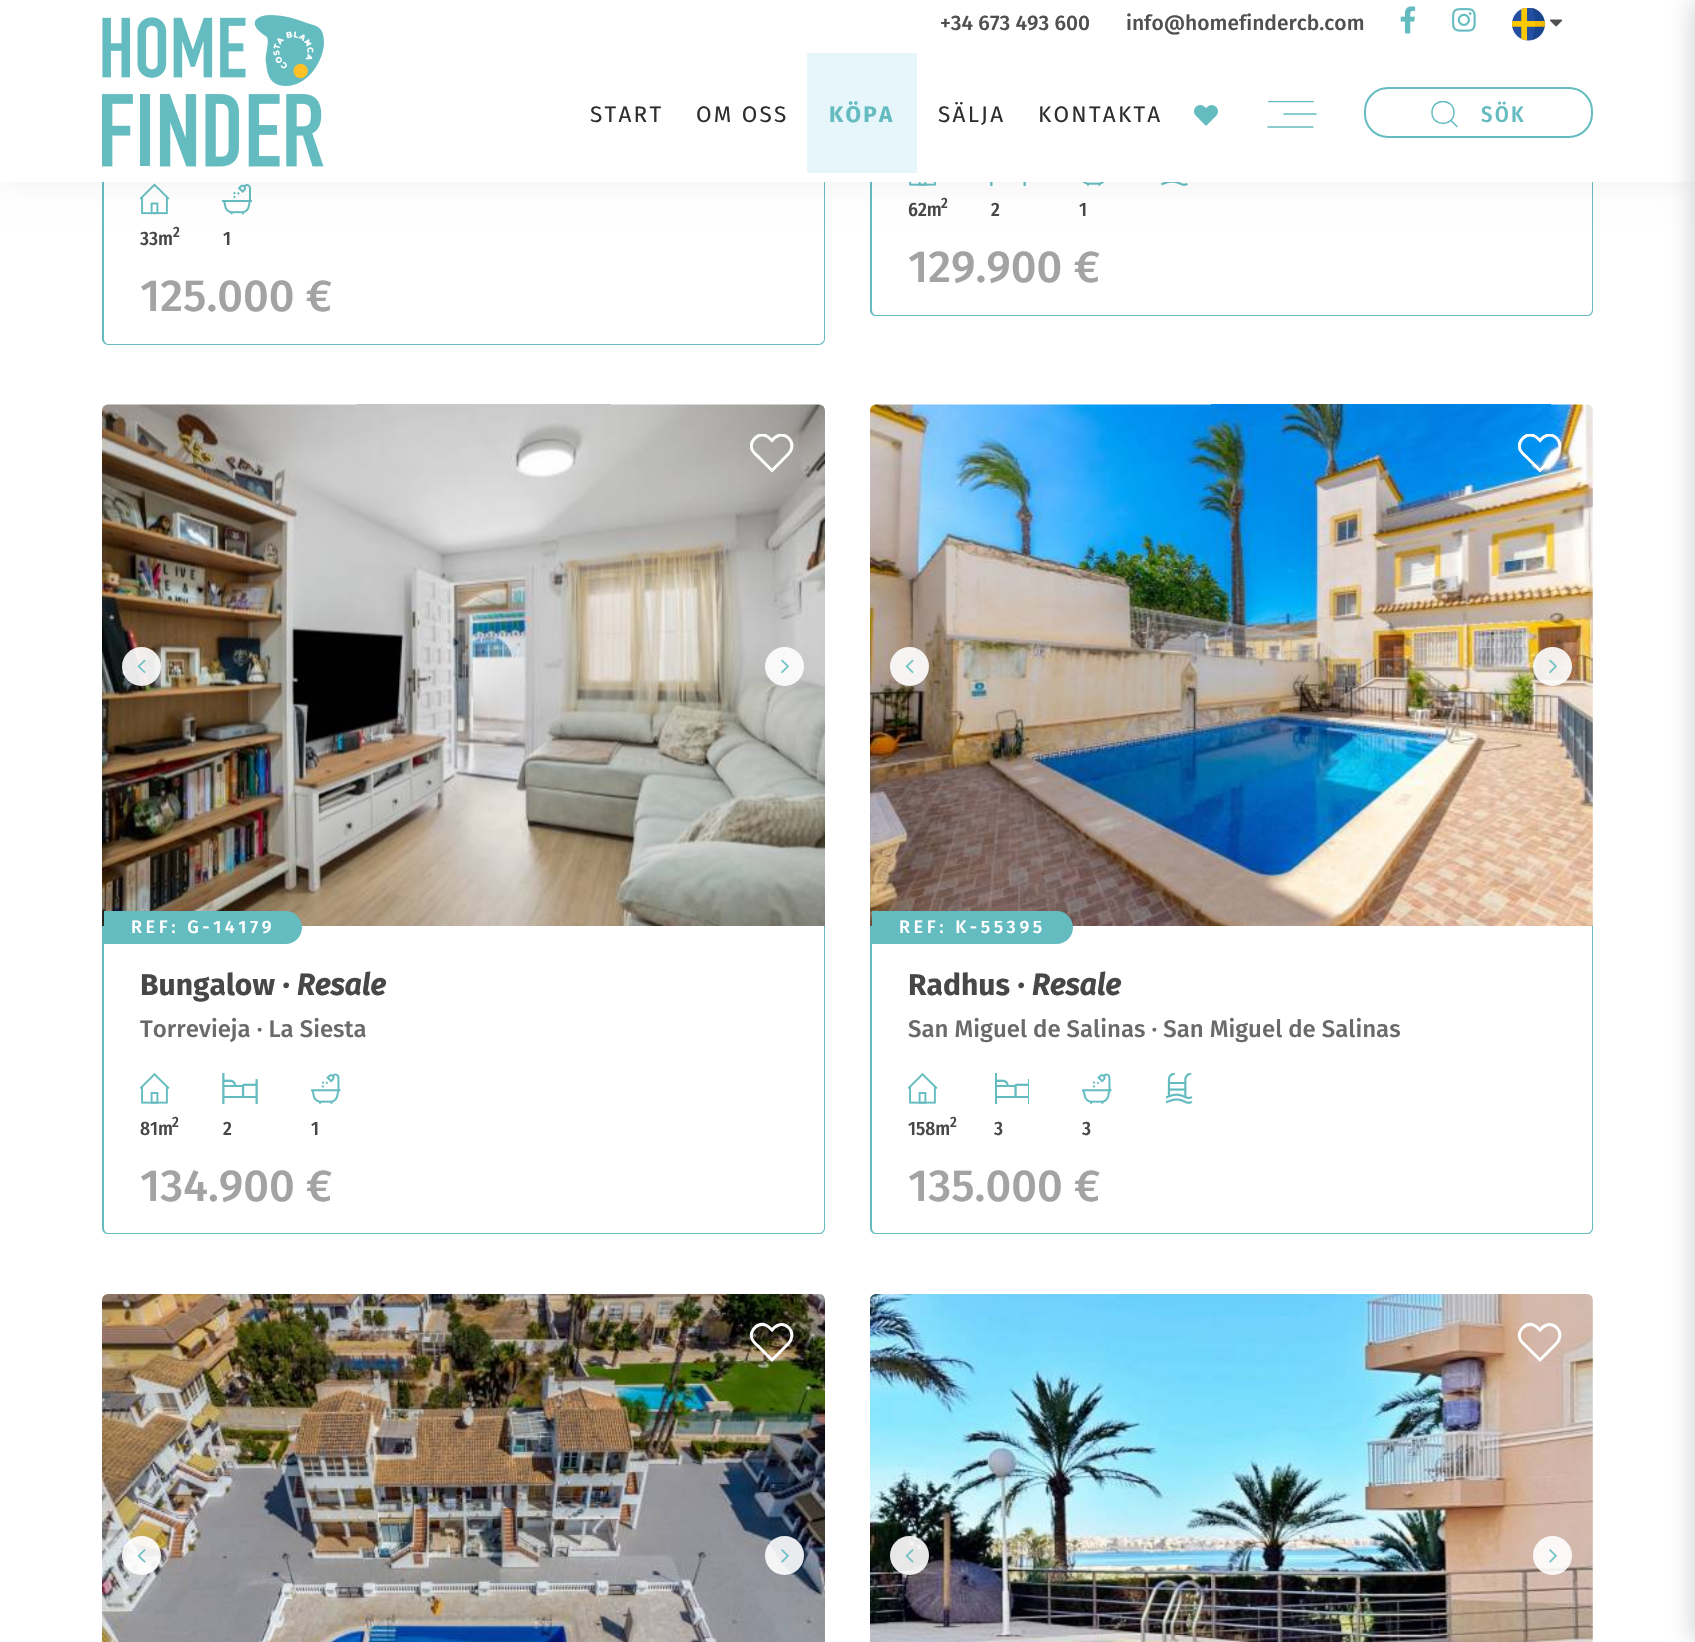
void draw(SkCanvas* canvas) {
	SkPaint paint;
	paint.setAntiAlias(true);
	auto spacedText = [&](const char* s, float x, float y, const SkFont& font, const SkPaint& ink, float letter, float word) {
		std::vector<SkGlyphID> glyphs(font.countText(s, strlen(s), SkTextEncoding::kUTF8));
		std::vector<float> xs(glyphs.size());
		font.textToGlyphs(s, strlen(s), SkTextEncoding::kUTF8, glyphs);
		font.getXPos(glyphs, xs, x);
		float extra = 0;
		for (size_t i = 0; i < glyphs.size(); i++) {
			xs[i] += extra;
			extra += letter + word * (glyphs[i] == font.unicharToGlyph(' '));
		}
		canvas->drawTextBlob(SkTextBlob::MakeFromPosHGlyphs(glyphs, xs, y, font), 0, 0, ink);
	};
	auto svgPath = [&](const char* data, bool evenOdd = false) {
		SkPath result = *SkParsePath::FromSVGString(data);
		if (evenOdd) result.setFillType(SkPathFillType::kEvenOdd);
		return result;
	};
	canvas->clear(0xffffffff);
	paint.setColor(0xff64bcc1);
	canvas->drawPath(svgPath("M102 6H825V339C825 342 822 345 819 345H108C105 345 102 342 102 339ZM104 6H824V339C824 341 821 344 819 344H108C106 344 104 341 104 339Z", true), paint);
	canvas->drawImageRect(SkImages::DeferredFromEncodedData(SkData::MakeFromFileName("img7.png")), SkRect::MakeXYWH(140, 183, 30, 32), SkSamplingOptions());
	canvas->drawImageRect(SkImages::DeferredFromEncodedData(SkData::MakeFromFileName("img8.png")), SkRect::MakeXYWH(222, 184, 30, 31), SkSamplingOptions());
	canvas->drawPath(svgPath("M870 6H1593V310C1593 314 1590 316 1587 316H876C873 316 870 314 870 310ZM872 6H1592V310C1592 313 1589 315 1587 315H876C874 315 872 313 872 310Z", true), paint);
	canvas->drawImageRect(SkImages::DeferredFromEncodedData(SkData::MakeFromFileName("img9.png")), SkRect::MakeXYWH(1161, 182, 27, 4), SkSamplingOptions());
	canvas->drawImageRect(SkImages::DeferredFromEncodedData(SkData::MakeFromFileName("img10.png")), SkRect::MakeXYWH(909, 182, 27, 4), SkSamplingOptions());
	canvas->drawImageRect(SkImages::DeferredFromEncodedData(SkData::MakeFromFileName("img11.png")), SkRect::MakeXYWH(990, 182, 36, 4), SkSamplingOptions());
	canvas->drawImageRect(SkImages::DeferredFromEncodedData(SkData::MakeFromFileName("img12.png")), SkRect::MakeXYWH(1082, 182, 23, 4), SkSamplingOptions());
	paint.setColor(0x0f000000);
	paint.setMaskFilter(SkMaskFilter::MakeBlur(kNormal_SkBlurStyle, 15));
	canvas->drawRect(SkRect::MakeXYWH(0, 0, 1695, 182), paint);
	paint.setMaskFilter(nullptr);
	paint.setColor(0xffffffff);
	canvas->drawRect(SkRect::MakeXYWH(0, 0, 1695, 182), paint);
	canvas->drawImageRect(SkImages::DeferredFromEncodedData(SkData::MakeFromFileName("img1.png")), SkRect::MakeXYWH(102, 15, 222, 152), SkSamplingOptions());
	SkFont f1(fontMgr->matchFamilyStyle("Fira Sans", SkFontStyle(500, SkFontStyle::kNormal_Width, SkFontStyle::kUpright_Slant)), 21);
	f1.setSubpixel(true);
	paint.setColor(0xff505050);
	canvas->drawString("+34 673 493 600", 940, 30, f1, paint);
	canvas->drawString("info@homefindercb.com", 1126, 30, f1, paint);
	canvas->drawImageRect(SkImages::DeferredFromEncodedData(SkData::MakeFromFileName("img2.png")), SkRect::MakeXYWH(1400, 6, 16, 28), SkSamplingOptions());
	canvas->drawImageRect(SkImages::DeferredFromEncodedData(SkData::MakeFromFileName("img3.png")), SkRect::MakeXYWH(1452, 8, 24, 24), SkSamplingOptions());
	canvas->drawImageRect(SkImages::DeferredFromEncodedData(SkData::MakeFromFileName("img4.png")), SkRect::MakeXYWH(1512, 8, 33, 33), SkSamplingOptions());
	canvas->drawImageRect(SkImages::DeferredFromEncodedData(SkData::MakeFromFileName("img5.png")), SkRect::MakeXYWH(1550, 19, 13, 8), SkSamplingOptions());
	SkFont f2(fontMgr->matchFamilyStyle("Fira Sans", SkFontStyle::Normal()), 22.5);
	f2.setSubpixel(true);
	paint.setColor(0xff2e2e2d);
	spacedText("START", 590, 122, f2, paint, 2.25, 0);
	spacedText("OM OSS", 696, 122, f2, paint, 2.25, 0);
	paint.setColor(0xffe7f6fa);
	canvas->drawRect(SkRect::MakeXYWH(807, 53, 110, 120), paint);
	SkFont f3(fontMgr->matchFamilyStyle("Fira Sans", SkFontStyle::Bold()), 22.5);
	f3.setSubpixel(true);
	paint.setColor(0xff64bcc1);
	spacedText("KÖPA", 829, 122, f3, paint, 2.25, 0);
	paint.setColor(0xff2e2e2d);
	spacedText("SÄLJA", 938, 122, f2, paint, 2.25, 0);
	spacedText("KONTAKTA", 1038, 122, f2, paint, 2.25, 0);
	canvas->drawImageRect(SkImages::DeferredFromEncodedData(SkData::MakeFromFileName("img6.png")), SkRect::MakeXYWH(1194, 105, 24, 21), SkSamplingOptions());
	canvas->save();
	canvas->clipRect(SkRect::MakeXYWH(1268, 101, 48, 27));
	paint.setStroke(true);
	paint.setStrokeWidth(1.5);
	paint.setStrokeCap(SkPaint::kRound_Cap);
	paint.setColor(0xff64bcc1);
	canvas->drawPath(svgPath("M1268 101.5H1313"), paint);
	canvas->restore();
	canvas->drawPath(svgPath("M1268 127H1313M1284 114H1316"), paint);
	paint.setStrokeWidth(2);
	paint.setStrokeCap(SkPaint::kButt_Cap);
	canvas->drawRoundRect(SkRect::MakeXYWH(1365, 88, 227, 49), 23, 23, paint);
	canvas->save();
	canvas->clipRect(SkRect::MakeXYWH(1431, 101, 27, 27));
	paint.setStrokeWidth(1.5);
	paint.setStrokeCap(SkPaint::kRound_Cap);
	paint.setStrokeJoin(SkPaint::kRound_Join);
	canvas->drawPath(svgPath("M1454 112.5C1454 127 1432 127 1432 112.5C1432 97.5 1454 98 1454 112.5Z"), paint);
	canvas->restore();
	SkFont f4(fontMgr->matchFamilyStyle("Fira Sans Condensed", SkFontStyle(500, SkFontStyle::kNormal_Width, SkFontStyle::kUpright_Slant)), 22.5);
	f4.setSubpixel(true);
	paint.setStroke(false);
	spacedText("SÖK", 1481, 122, f4, paint, 2.25, 0);
	paint.setStroke(true);
	canvas->drawPath(svgPath("M1457 126.5L1451 120.5"), paint);
	paint.setStroke(false);
	paint.setColor(0x33000000);
	paint.setMaskFilter(SkMaskFilter::MakeBlur(kNormal_SkBlurStyle, 13.5));
	canvas->drawRect(SkRect::MakeXYWH(1695, 0, 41, 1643), paint);
	paint.setMaskFilter(nullptr);
	SkFont f5(fontMgr->matchFamilyStyle("Fira Sans Condensed", SkFontStyle(500, SkFontStyle::kNormal_Width, SkFontStyle::kUpright_Slant)), 19.5);
	f5.setSubpixel(true);
	paint.setColor(0xff484646);
	canvas->drawString("33m", 140, 245, f5, paint);
	SkFont f6(fontMgr->matchFamilyStyle("Fira Sans Condensed", SkFontStyle(500, SkFontStyle::kNormal_Width, SkFontStyle::kUpright_Slant)), 15);
	f6.setSubpixel(true);
	canvas->drawString("2", 173, 237, f6, paint);
	canvas->drawString("1", 223, 245, f5, paint);
	SkFont f7(fontMgr->matchFamilyStyle("Fira Sans", SkFontStyle(500, SkFontStyle::kNormal_Width, SkFontStyle::kUpright_Slant)), 45);
	f7.setSubpixel(true);
	paint.setColor(0xffa3a3a3);
	canvas->drawString("125.000 €", 140, 311, f7, paint);
	paint.setColor(0xff484646);
	canvas->drawString("62m", 908, 216, f5, paint);
	canvas->drawString("2", 941, 208, f6, paint);
	canvas->drawString("2", 991, 216, f5, paint);
	canvas->drawString("1", 1079, 216, f5, paint);
	paint.setColor(0xffa3a3a3);
	canvas->drawString("129.900 €", 908, 282, f7, paint);
	paint.setColor(0xff64bcc1);
	canvas->drawPath(svgPath("M102 924H825V1228C825 1232 822 1234 819 1234H108C105 1234 102 1232 102 1228ZM104 924H824V1228C824 1231 821 1233 819 1233H108C106 1233 104 1231 104 1228Z", true), paint);
	canvas->drawImageRect(SkImages::DeferredFromEncodedData(SkData::MakeFromFileName("img13.png")), SkRect::MakeXYWH(102, 404, 723, 522), SkSamplingOptions());
	canvas->save();
	canvas->clipRect(SkRect::MakeXYWH(750, 434, 44, 39));
	paint.setStroke(true);
	paint.setStrokeWidth(3);
	paint.setStrokeCap(SkPaint::kButt_Cap);
	paint.setStrokeJoin(SkPaint::kMiter_Join);
	paint.setColor(0xffffffff);
	canvas->drawPath(svgPath("M781.5 461C784.5 457.5 789.5 454 791 450C794.5 441 786 432.5 777.5 436C775 437 773.5 438.5 772 440.5C770 438.5 768.5 437 766.5 436C758 432 749 441 752 449.5C753.5 453 757 455.5 759.5 458L772 470.5L781.5 461"), paint);
	canvas->restore();
	paint.setStroke(false);
	paint.setColor(0xe6ffffff);
	canvas->drawCircle(141.5, 666.5, 19.5, paint);
	canvas->drawImageRect(SkImages::DeferredFromEncodedData(SkData::MakeFromFileName("img14.png")), SkRect::MakeXYWH(137, 659, 9, 15), SkSamplingOptions());
	canvas->drawCircle(784.5, 666.5, 19.5, paint);
	canvas->drawImageRect(SkImages::DeferredFromEncodedData(SkData::MakeFromFileName("img15.png")), SkRect::MakeXYWH(781, 659, 8, 15), SkSamplingOptions());
	paint.setColor(0xff64bcc1);
	canvas->drawPath(svgPath("M104 911H285.5C294.5 911 302 918.5 302 927.5C302 936.5 294.5 944 285.5 944H104Z"), paint);
	SkFont f8(fontMgr->matchFamilyStyle("Fira Sans", SkFontStyle(500, SkFontStyle::kNormal_Width, SkFontStyle::kUpright_Slant)), 18);
	f8.setSubpixel(true);
	paint.setColor(0xffffffff);
	spacedText("REF: G-14179", 131, 933, f8, paint, 3.6, 0);
	SkFont f9(fontMgr->matchFamilyStyle("Fira Sans", SkFontStyle::Bold()), 30);
	f9.setSubpixel(true);
	paint.setColor(0xff484646);
	canvas->drawString("Bungalow", 140, 995, f9, paint);
	SkFont f10(fontMgr->matchFamilyStyle("Fira Sans", SkFontStyle::BoldItalic()), 30);
	f10.setSubpixel(true);
	canvas->drawString("· Resale", 282, 995, f10, paint);
	SkFont f11(fontMgr->matchFamilyStyle("Fira Sans", SkFontStyle(500, SkFontStyle::kNormal_Width, SkFontStyle::kUpright_Slant)), 24);
	f11.setSubpixel(true);
	paint.setColor(0xff6a6a6a);
	canvas->drawString("Torrevieja · La Siesta", 140, 1037, f11, paint);
	canvas->drawImageRect(SkImages::DeferredFromEncodedData(SkData::MakeFromFileName("img16.png")), SkRect::MakeXYWH(140, 1073, 30, 31), SkSamplingOptions());
	paint.setColor(0xff484646);
	canvas->drawString("81m", 140, 1135, f5, paint);
	canvas->drawString("2", 172, 1127, f6, paint);
	canvas->drawImageRect(SkImages::DeferredFromEncodedData(SkData::MakeFromFileName("img17.png")), SkRect::MakeXYWH(222, 1073, 36, 31), SkSamplingOptions());
	canvas->drawString("2", 223, 1135, f5, paint);
	canvas->drawImageRect(SkImages::DeferredFromEncodedData(SkData::MakeFromFileName("img18.png")), SkRect::MakeXYWH(311, 1073, 30, 31), SkSamplingOptions());
	canvas->drawString("1", 311, 1135, f5, paint);
	paint.setColor(0xffa3a3a3);
	canvas->drawString("134.900 €", 140, 1201, f7, paint);
	paint.setColor(0xff64bcc1);
	canvas->drawPath(svgPath("M870 924H1593V1228C1593 1232 1590 1234 1587 1234H876C873 1234 870 1232 870 1228ZM872 924H1592V1228C1592 1231 1589 1233 1587 1233H876C874 1233 872 1231 872 1228Z", true), paint);
	canvas->drawImageRect(SkImages::DeferredFromEncodedData(SkData::MakeFromFileName("img19.png")), SkRect::MakeXYWH(870, 404, 723, 522), SkSamplingOptions());
	canvas->save();
	canvas->clipRect(SkRect::MakeXYWH(1518, 434, 44, 39));
	paint.setStroke(true);
	paint.setColor(0xffffffff);
	canvas->drawPath(svgPath("M1549.5 461C1552.5 457.5 1557.5 454 1559 450C1562.5 441 1554 432.5 1545.5 436C1543 437 1541.5 438.5 1540 440.5C1538 438.5 1536.5 437 1534.5 436C1526 432 1517 441 1520 449.5C1521.5 453 1525 455.5 1527.5 458L1540 470.5L1549.5 461"), paint);
	canvas->restore();
	paint.setStroke(false);
	paint.setColor(0xe6ffffff);
	canvas->drawCircle(909.5, 666.5, 19.5, paint);
	canvas->drawImageRect(SkImages::DeferredFromEncodedData(SkData::MakeFromFileName("img20.png")), SkRect::MakeXYWH(905, 659, 9, 15), SkSamplingOptions());
	canvas->drawCircle(1552.5, 666.5, 19.5, paint);
	canvas->drawImageRect(SkImages::DeferredFromEncodedData(SkData::MakeFromFileName("img21.png")), SkRect::MakeXYWH(1549, 659, 8, 15), SkSamplingOptions());
	paint.setColor(0xff64bcc1);
	canvas->drawPath(svgPath("M872 911H1056.5C1065.5 911 1073 918.5 1073 927.5C1073 936.5 1065.5 944 1056.5 944H872Z"), paint);
	paint.setColor(0xffffffff);
	spacedText("REF: K-55395", 899, 933, f8, paint, 3.6, 0);
	paint.setColor(0xff484646);
	canvas->drawString("Radhus", 908, 995, f9, paint);
	canvas->drawString("· Resale", 1017, 995, f10, paint);
	paint.setColor(0xff6a6a6a);
	canvas->drawString("San Miguel de Salinas · San Miguel de Salinas", 908, 1037, f11, paint);
	canvas->drawImageRect(SkImages::DeferredFromEncodedData(SkData::MakeFromFileName("img22.png")), SkRect::MakeXYWH(1166, 1073, 27, 31), SkSamplingOptions());
	canvas->drawImageRect(SkImages::DeferredFromEncodedData(SkData::MakeFromFileName("img16.png")), SkRect::MakeXYWH(908, 1073, 30, 31), SkSamplingOptions());
	paint.setColor(0xff484646);
	canvas->drawString("158m", 908, 1135, f5, paint);
	canvas->drawString("2", 950, 1127, f6, paint);
	canvas->drawImageRect(SkImages::DeferredFromEncodedData(SkData::MakeFromFileName("img23.png")), SkRect::MakeXYWH(995, 1073, 34, 31), SkSamplingOptions());
	canvas->drawString("3", 994, 1135, f5, paint);
	canvas->drawImageRect(SkImages::DeferredFromEncodedData(SkData::MakeFromFileName("img18.png")), SkRect::MakeXYWH(1082, 1073, 30, 31), SkSamplingOptions());
	canvas->drawString("3", 1082, 1135, f5, paint);
	paint.setColor(0xffa3a3a3);
	canvas->drawString("135.000 €", 908, 1201, f7, paint);
	canvas->drawImageRect(SkImages::DeferredFromEncodedData(SkData::MakeFromFileName("img24.png")), SkRect::MakeXYWH(102, 1294, 723, 348), SkSamplingOptions());
	paint.setColor(0xe6ffffff);
	canvas->drawCircle(141.5, 1555.5, 19.5, paint);
	canvas->drawImageRect(SkImages::DeferredFromEncodedData(SkData::MakeFromFileName("img25.png")), SkRect::MakeXYWH(137, 1549, 9, 14), SkSamplingOptions());
	canvas->drawCircle(784.5, 1555.5, 19.5, paint);
	canvas->drawImageRect(SkImages::DeferredFromEncodedData(SkData::MakeFromFileName("img26.png")), SkRect::MakeXYWH(781, 1549, 8, 14), SkSamplingOptions());
	paint.setStroke(true);
	paint.setColor(0xffffffff);
	canvas->drawPath(svgPath("M781.5 1350.5C784.5 1347 789.5 1343.5 791 1339.5C794.5 1330.5 786 1322 777.5 1325.5C775 1326.5 773.5 1328 772 1330C770 1328 768.5 1326.5 766.5 1325.5C758 1321.5 749 1330.5 752 1339C753.5 1342.5 757 1345 759.5 1347.5L772 1360L781.5 1350.5"), paint);
	canvas->drawImageRect(SkImages::DeferredFromEncodedData(SkData::MakeFromFileName("img27.png")), SkRect::MakeXYWH(870, 1294, 723, 348), SkSamplingOptions());
	paint.setStroke(false);
	paint.setColor(0xe6ffffff);
	canvas->drawCircle(909.5, 1555.5, 19.5, paint);
	canvas->drawImageRect(SkImages::DeferredFromEncodedData(SkData::MakeFromFileName("img28.png")), SkRect::MakeXYWH(905, 1549, 9, 14), SkSamplingOptions());
	canvas->drawCircle(1552.5, 1555.5, 19.5, paint);
	canvas->drawImageRect(SkImages::DeferredFromEncodedData(SkData::MakeFromFileName("img29.png")), SkRect::MakeXYWH(1549, 1549, 8, 14), SkSamplingOptions());
	paint.setStroke(true);
	paint.setColor(0xffffffff);
	canvas->drawPath(svgPath("M1549.5 1350.5C1552.5 1347 1557.5 1343.5 1559 1339.5C1562.5 1330.5 1554 1322 1545.5 1325.5C1543 1326.5 1541.5 1328 1540 1330C1538 1328 1536.5 1326.5 1534.5 1325.5C1526 1321.5 1517 1330.5 1520 1339C1521.5 1342.5 1525 1345 1527.5 1347.5L1540 1360L1549.5 1350.5"), paint);
}
